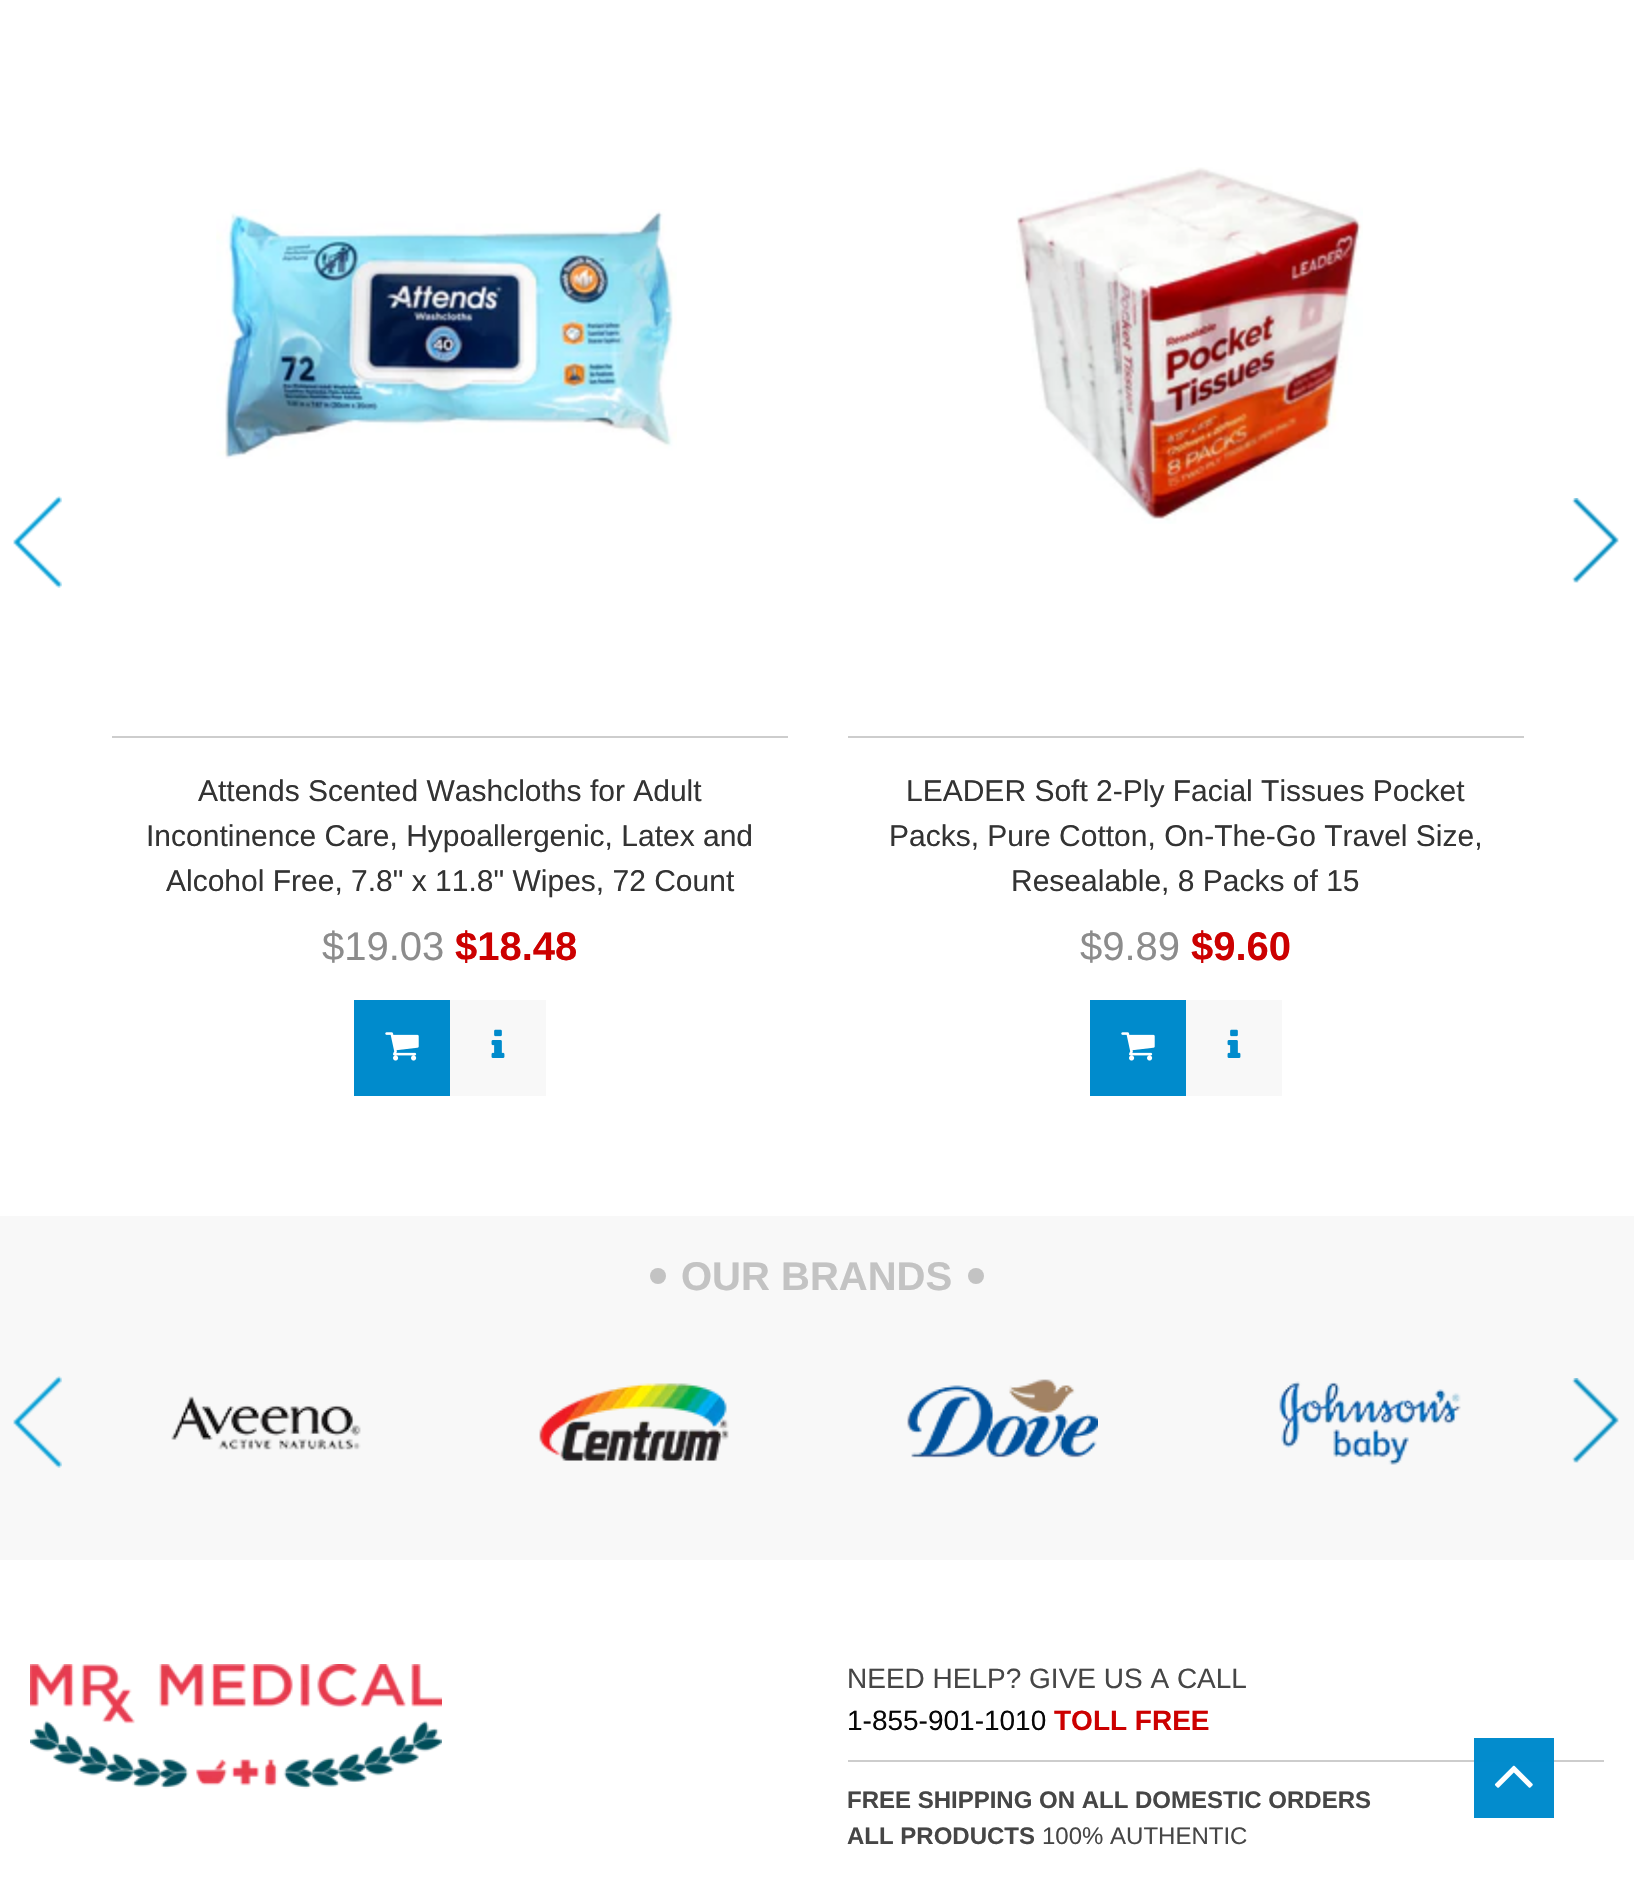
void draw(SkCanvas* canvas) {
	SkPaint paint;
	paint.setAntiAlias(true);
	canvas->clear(0xffffffff);
	paint.setColor(0xff038ccd);
	canvas->drawRect(SkRect::MakeXYWH(1474, 1738, 80, 80), paint);
	canvas->drawImageRect(SkImages::DeferredFromEncodedData(SkData::MakeFromFileName("img1.png")), SkRect::MakeXYWH(13, 496, 49, 92), SkSamplingOptions());
	canvas->drawImageRect(SkImages::DeferredFromEncodedData(SkData::MakeFromFileName("img2.png")), SkRect::MakeXYWH(1572, 498, 47, 85), SkSamplingOptions());
	canvas->drawImageRect(SkImages::DeferredFromEncodedData(SkData::MakeFromFileName("img3.png")), SkRect::MakeXYWH(216, 209, 461, 250), SkSamplingOptions());
	paint.setColor(0xffcdcdcd);
	canvas->drawRect(SkRect::MakeXYWH(112, 736, 676, 2), paint);
	SkFont f1(fontMgr->matchFamilyStyle("Liberation Sans", SkFontStyle::Normal()), 30);
	f1.setSubpixel(true);
	paint.setColor(0xff333333);
	canvas->drawString("Attends Scented Washcloths for Adult", 198, 801, f1, paint);
	canvas->drawString("Incontinence Care, Hypoallergenic, Latex and", 146, 846, f1, paint);
	canvas->drawString("Alcohol Free, 7.8\" x 11.8\" Wipes, 72 Count", 166, 891, f1, paint);
	SkFont f2(fontMgr->matchFamilyStyle("Liberation Sans", SkFontStyle::Normal()), 40);
	f2.setSubpixel(true);
	paint.setColor(0xff8c8c8c);
	canvas->drawString("$19.03", 322, 960, f2, paint);
	SkFont f3(fontMgr->matchFamilyStyle("Liberation Sans", SkFontStyle::Bold()), 40);
	f3.setSubpixel(true);
	paint.setColor(0xffcc0000);
	canvas->drawString("$18.48", 455, 960, f3, paint);
	paint.setColor(0xff008bcc);
	canvas->drawRect(SkRect::MakeXYWH(354, 1000, 96, 96), paint);
	canvas->drawImageRect(SkImages::DeferredFromEncodedData(SkData::MakeFromFileName("img4.png")), SkRect::MakeXYWH(385, 1032, 34, 29), SkSamplingOptions());
	paint.setColor(0xfff8f8f8);
	canvas->drawRect(SkRect::MakeXYWH(450, 1000, 96, 96), paint);
	canvas->drawImageRect(SkImages::DeferredFromEncodedData(SkData::MakeFromFileName("img5.png")), SkRect::MakeXYWH(491, 1029, 14, 29), SkSamplingOptions());
	canvas->drawImageRect(SkImages::DeferredFromEncodedData(SkData::MakeFromFileName("img6.png")), SkRect::MakeXYWH(1016, 167, 347, 357), SkSamplingOptions());
	paint.setColor(0xffcdcdcd);
	canvas->drawRect(SkRect::MakeXYWH(848, 736, 676, 2), paint);
	paint.setColor(0xff333333);
	canvas->drawString("LEADER Soft 2-Ply Facial Tissues Pocket", 906, 801, f1, paint);
	canvas->drawString("Packs, Pure Cotton, On-The-Go Travel Size,", 889, 846, f1, paint);
	canvas->drawString("Resealable, 8 Packs of 15", 1011, 891, f1, paint);
	paint.setColor(0xff8c8c8c);
	canvas->drawString("$9.89", 1080, 960, f2, paint);
	paint.setColor(0xffcc0000);
	canvas->drawString("$9.60", 1191, 960, f3, paint);
	paint.setColor(0xff008bcc);
	canvas->drawRect(SkRect::MakeXYWH(1090, 1000, 96, 96), paint);
	canvas->drawImageRect(SkImages::DeferredFromEncodedData(SkData::MakeFromFileName("img4.png")), SkRect::MakeXYWH(1121, 1032, 34, 29), SkSamplingOptions());
	paint.setColor(0xfff8f8f8);
	canvas->drawRect(SkRect::MakeXYWH(1186, 1000, 96, 96), paint);
	canvas->drawImageRect(SkImages::DeferredFromEncodedData(SkData::MakeFromFileName("img5.png")), SkRect::MakeXYWH(1227, 1029, 14, 29), SkSamplingOptions());
	canvas->drawRect(SkRect::MakeXYWH(0, 1216, 1634, 344), paint);
	paint.setColor(0xffc3c3c3);
	canvas->drawCircle(658, 1276, 8, paint);
	canvas->drawString("OUR BRANDS", 681, 1290, f3, paint);
	canvas->drawCircle(976, 1276, 8, paint);
	canvas->drawImageRect(SkImages::DeferredFromEncodedData(SkData::MakeFromFileName("img7.png")), SkRect::MakeXYWH(13, 1376, 49, 92), SkSamplingOptions());
	canvas->drawImageRect(SkImages::DeferredFromEncodedData(SkData::MakeFromFileName("img8.png")), SkRect::MakeXYWH(171, 1396, 190, 54), SkSamplingOptions());
	canvas->drawImageRect(SkImages::DeferredFromEncodedData(SkData::MakeFromFileName("img9.png")), SkRect::MakeXYWH(539, 1383, 190, 78), SkSamplingOptions());
	canvas->drawImageRect(SkImages::DeferredFromEncodedData(SkData::MakeFromFileName("img10.png")), SkRect::MakeXYWH(907, 1379, 191, 79), SkSamplingOptions());
	canvas->drawImageRect(SkImages::DeferredFromEncodedData(SkData::MakeFromFileName("img11.png")), SkRect::MakeXYWH(1279, 1381, 182, 84), SkSamplingOptions());
	canvas->drawImageRect(SkImages::DeferredFromEncodedData(SkData::MakeFromFileName("img12.png")), SkRect::MakeXYWH(1572, 1378, 47, 85), SkSamplingOptions());
	canvas->drawImageRect(SkImages::DeferredFromEncodedData(SkData::MakeFromFileName("img13.png")), SkRect::MakeXYWH(30, 1664, 412, 125), SkSamplingOptions());
	SkFont f4(fontMgr->matchFamilyStyle("Liberation Sans", SkFontStyle::Normal()), 28);
	f4.setSubpixel(true);
	paint.setColor(0xff464646);
	canvas->drawString("NEED HELP? GIVE US A CALL", 847, 1688, f4, paint);
	paint.setColor(0xff070707);
	canvas->drawString("1-855-901-1010", 847, 1730, f4, paint);
	SkFont f5(fontMgr->matchFamilyStyle("Liberation Sans", SkFontStyle::Bold()), 28);
	f5.setSubpixel(true);
	paint.setColor(0xffcc0000);
	canvas->drawString("TOLL FREE", 1054, 1730, f5, paint);
	paint.setColor(0xffcdcdcd);
	canvas->drawRect(SkRect::MakeXYWH(848, 1760, 756, 2), paint);
	paint.setColor(0xff028ccc);
	canvas->drawRect(SkRect::MakeXYWH(1474, 1760, 80, 2), paint);
	SkFont f6(fontMgr->matchFamilyStyle("Liberation Sans", SkFontStyle::Bold()), 24);
	f6.setSubpixel(true);
	paint.setColor(0xff464646);
	canvas->drawString("FREE SHIPPING ON ALL DOMESTIC ORDERS", 847, 1808, f6, paint);
	canvas->drawString("ALL PRODUCTS", 847, 1844, f6, paint);
	SkFont f7(fontMgr->matchFamilyStyle("Liberation Sans", SkFontStyle::Normal()), 24);
	f7.setSubpixel(true);
	canvas->drawString("100% AUTHENTIC", 1042, 1844, f7, paint);
	canvas->drawImageRect(SkImages::DeferredFromEncodedData(SkData::MakeFromFileName("img14.png")), SkRect::MakeXYWH(1494, 1765, 39, 23), SkSamplingOptions());
}
